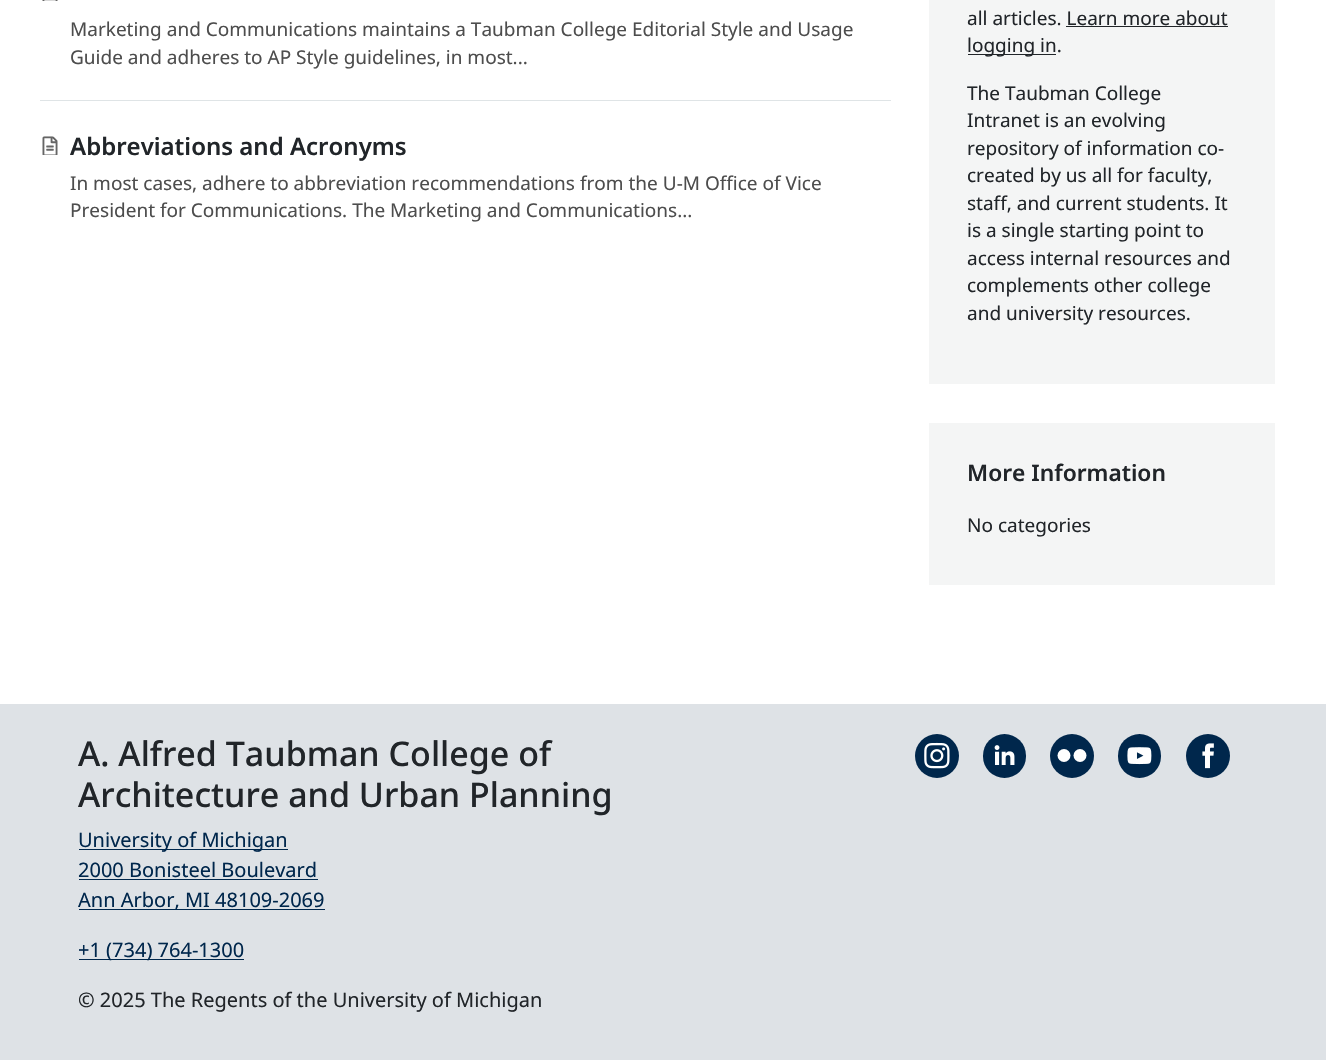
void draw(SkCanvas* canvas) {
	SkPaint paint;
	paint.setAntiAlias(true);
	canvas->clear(0xffffffff);
	paint.setColor(0xffdfe4e6);
	canvas->drawRect(SkRect::MakeXYWH(40, 100, 851, 1), paint);
	canvas->drawImageRect(SkImages::DeferredFromEncodedData(SkData::MakeFromFileName("img1.png")), SkRect::MakeXYWH(42, 0, 16, 1), SkSamplingOptions());
	SkFont f1(fontMgr->matchFamilyStyle("Noto Sans", SkFontStyle::Normal()), 19);
	f1.setSubpixel(true);
	paint.setColor(0xff4d4d4d);
	canvas->drawString("Marketing and Communications maintains a Taubman College Editorial Style and Usage", 70, 36, f1, paint);
	canvas->drawString("Guide and adheres to AP Style guidelines, in most...", 70, 64, f1, paint);
	canvas->drawImageRect(SkImages::DeferredFromEncodedData(SkData::MakeFromFileName("img2.png")), SkRect::MakeXYWH(42, 136, 16, 19), SkSamplingOptions());
	SkFont f2(fontMgr->matchFamilyStyle("Noto Sans", SkFontStyle(600, SkFontStyle::kNormal_Width, SkFontStyle::kUpright_Slant)), 24);
	f2.setSubpixel(true);
	paint.setColor(0xff212529);
	canvas->drawString("Abbreviations and Acronyms", 70, 155, f2, paint);
	paint.setColor(0xff4d4d4d);
	canvas->drawString("In most cases, adhere to abbreviation recommendations from the U-M Office of Vice", 70, 190, f1, paint);
	canvas->drawString("President for Communications. The Marketing and Communications...", 70, 217, f1, paint);
	paint.setColor(0xfff4f5f5);
	canvas->drawRect(SkRect::MakeXYWH(929, 0, 346, 384), paint);
	paint.setColor(0xff212529);
	canvas->drawString("all articles. Learn more about", 967, 25, f1, paint);
	canvas->drawRect(SkRect::MakeXYWH(968, 54, 88, 1), paint);
	canvas->drawString("logging in.", 967, 52, f1, paint);
	canvas->drawRect(SkRect::MakeXYWH(1066, 26, 162, 1), paint);
	canvas->drawString("The Taubman College", 967, 100, f1, paint);
	canvas->drawString("Intranet is an evolving", 967, 127, f1, paint);
	canvas->drawString("repository of information co-", 967, 155, f1, paint);
	canvas->drawString("created by us all for faculty,", 967, 182, f1, paint);
	canvas->drawString("staff, and current students. It", 967, 210, f1, paint);
	canvas->drawString("is a single starting point to", 967, 237, f1, paint);
	canvas->drawString("access internal resources and", 967, 265, f1, paint);
	canvas->drawString("complements other college", 967, 292, f1, paint);
	canvas->drawString("and university resources.", 967, 320, f1, paint);
	paint.setColor(0xfff4f5f5);
	canvas->drawRect(SkRect::MakeXYWH(929, 423, 346, 162), paint);
	SkFont f3(fontMgr->matchFamilyStyle("Noto Sans", SkFontStyle(600, SkFontStyle::kNormal_Width, SkFontStyle::kUpright_Slant)), 22.75);
	f3.setSubpixel(true);
	paint.setColor(0xff212529);
	canvas->drawString("More Information", 967, 481, f3, paint);
	canvas->drawString("No categories", 967, 532, f1, paint);
	paint.setColor(0xffdee2e6);
	canvas->drawRect(SkRect::MakeXYWH(0, 704, 1326, 356), paint);
	SkFont f4(fontMgr->matchFamilyStyle("Noto Sans", SkFontStyle(500, SkFontStyle::kNormal_Width, SkFontStyle::kUpright_Slant)), 34);
	f4.setSubpixel(true);
	paint.setColor(0xff212529);
	canvas->drawString("A. Alfred Taubman College of", 78, 766, f4, paint);
	canvas->drawString("Architecture and Urban Planning", 78, 807, f4, paint);
	paint.setColor(0xff00274c);
	canvas->drawRect(SkRect::MakeXYWH(79, 849, 209, 1), paint);
	SkFont f5(fontMgr->matchFamilyStyle("Noto Sans", SkFontStyle::Normal()), 20);
	f5.setSubpixel(true);
	canvas->drawString("University of Michigan", 78, 847, f5, paint);
	canvas->drawString("2000 Bonisteel Boulevard", 78, 877, f5, paint);
	canvas->drawRect(SkRect::MakeXYWH(79, 879, 239, 1), paint);
	canvas->drawRect(SkRect::MakeXYWH(79, 909, 246, 1), paint);
	canvas->drawString("Ann Arbor, MI 48109-2069", 78, 907, f5, paint);
	canvas->drawRect(SkRect::MakeXYWH(79, 959, 165, 1), paint);
	canvas->drawString("+1 (734) 764-1300", 78, 957, f5, paint);
	paint.setColor(0xff212529);
	canvas->drawString("© 2025 The Regents of the University of Michigan", 78, 1007, f5, paint);
	paint.setColor(0xff00274c);
	canvas->drawCircle(937, 756, 22, paint);
	canvas->drawImageRect(SkImages::DeferredFromEncodedData(SkData::MakeFromFileName("img3.png")), SkRect::MakeXYWH(924, 742, 26, 27), SkSamplingOptions());
	canvas->drawRoundRect(SkRect::MakeXYWH(983, 734, 43, 44), 21.5, 21.5, paint);
	canvas->drawImageRect(SkImages::DeferredFromEncodedData(SkData::MakeFromFileName("img4.png")), SkRect::MakeXYWH(994, 745, 21, 20), SkSamplingOptions());
	canvas->drawCircle(1072, 756, 22, paint);
	paint.setColor(0xffffffff);
	canvas->drawCircle(1064, 755.5, 6.5, paint);
	canvas->drawCircle(1080, 755.5, 6.5, paint);
	paint.setColor(0xff00274c);
	canvas->drawRoundRect(SkRect::MakeXYWH(1118, 734, 43, 44), 21.5, 21.5, paint);
	canvas->drawImageRect(SkImages::DeferredFromEncodedData(SkData::MakeFromFileName("img5.png")), SkRect::MakeXYWH(1127, 747, 25, 18), SkSamplingOptions());
	canvas->drawCircle(1208, 756, 22, paint);
	canvas->drawImageRect(SkImages::DeferredFromEncodedData(SkData::MakeFromFileName("img6.png")), SkRect::MakeXYWH(1202, 743, 12, 26), SkSamplingOptions());
}
